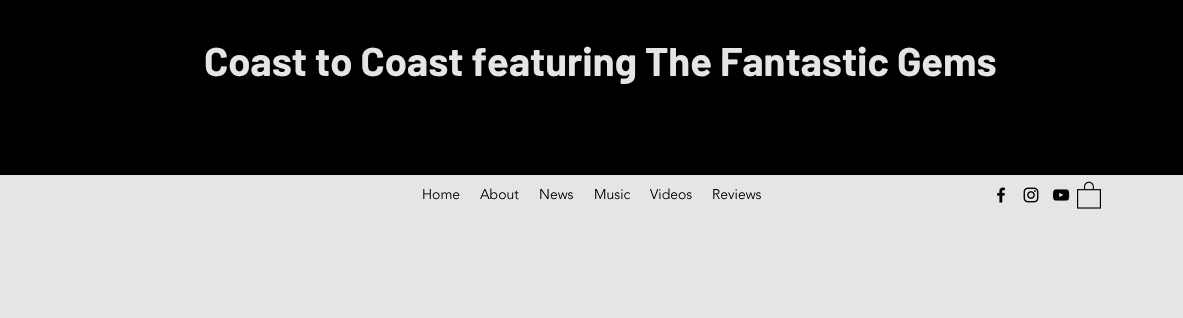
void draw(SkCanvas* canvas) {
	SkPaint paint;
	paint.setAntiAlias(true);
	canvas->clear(0xffe5e5e4);
	paint.setColor(0xff000000);
	canvas->drawRect(SkRect::MakeXYWH(0, 0, 1183, 175), paint);
	SkFont f1(fontMgr->matchFamilyStyle("Barlow", SkFontStyle::Bold()), 40);
	f1.setSubpixel(true);
	paint.setColor(0xffe5e5e4);
	canvas->drawString("Coast to Coast featuring The Fantastic Gems", 204, 76, f1, paint);
	SkFont f2(fontMgr->matchFamilyStyle("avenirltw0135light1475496", SkFontStyle(300, SkFontStyle::kNormal_Width, SkFontStyle::kUpright_Slant)), 14);
	f2.setSubpixel(true);
	paint.setColor(0xff000000);
	canvas->drawString("Home", 422, 199, f2, paint);
	canvas->drawString("About", 480, 199, f2, paint);
	canvas->drawString("News", 539, 199, f2, paint);
	canvas->drawString("Music", 594, 199, f2, paint);
	canvas->drawString("Videos", 650, 199, f2, paint);
	canvas->drawString("Reviews", 712, 199, f2, paint);
	canvas->drawImageRect(SkImages::DeferredFromEncodedData(SkData::MakeFromFileName("img1.png")), SkRect::MakeXYWH(997, 187, 9, 16), SkSamplingOptions());
	canvas->drawImageRect(SkImages::DeferredFromEncodedData(SkData::MakeFromFileName("img2.png")), SkRect::MakeXYWH(1023, 187, 16, 16), SkSamplingOptions());
	canvas->drawImageRect(SkImages::DeferredFromEncodedData(SkData::MakeFromFileName("img3.png")), SkRect::MakeXYWH(1052, 189, 18, 12), SkSamplingOptions());
	canvas->drawImageRect(SkImages::DeferredFromEncodedData(SkData::MakeFromFileName("img4.png")), SkRect::MakeXYWH(1077, 181, 24, 28), SkSamplingOptions());
}
